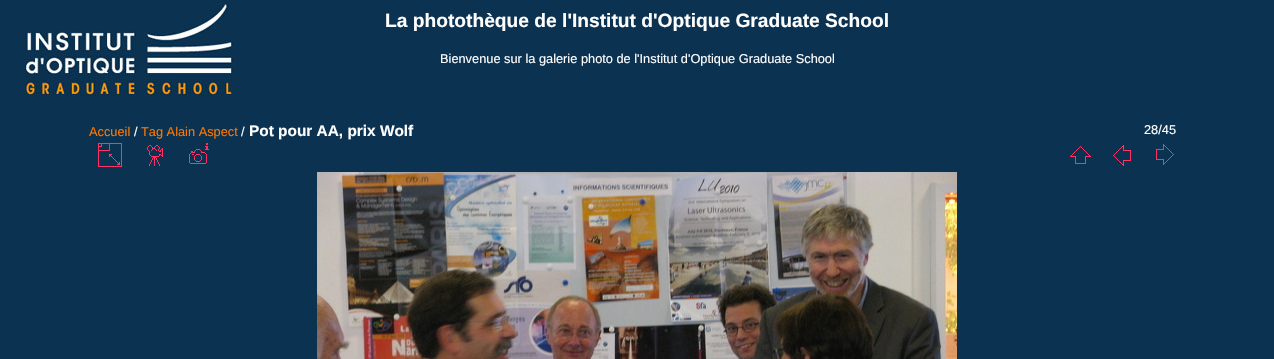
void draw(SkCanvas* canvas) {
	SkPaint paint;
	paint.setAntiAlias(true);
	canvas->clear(0xff0b3251);
	canvas->drawImageRect(SkImages::DeferredFromEncodedData(SkData::MakeFromFileName("img1.png")), SkRect::MakeXYWH(24, 0, 209, 96), SkSamplingOptions());
	SkFont f1(fontMgr->matchFamilyStyle("Liberation Sans", SkFontStyle::Bold()), 19.2);
	f1.setSubpixel(true);
	paint.setColor(0xffffffff);
	canvas->drawString("La photothèque de l'Institut d'Optique Graduate School", 385, 27, f1, paint);
	SkFont f2(fontMgr->matchFamilyStyle("Liberation Sans", SkFontStyle::Normal()), 12.8);
	f2.setSubpixel(true);
	canvas->drawString("Bienvenue sur la galerie photo de l'Institut d'Optique Graduate School", 440, 63, f2, paint);
	paint.setColor(0xffff7700);
	canvas->drawString("Accueil", 89, 136, f2, paint);
	paint.setColor(0xffffffff);
	canvas->drawString("/", 134, 136, f2, paint);
	paint.setColor(0xffff7700);
	canvas->drawString("Tag Alain Aspect", 141, 136, f2, paint);
	paint.setColor(0xffffffff);
	canvas->drawString("/", 241, 136, f2, paint);
	SkFont f3(fontMgr->matchFamilyStyle("Liberation Sans", SkFontStyle::Bold()), 15.4);
	f3.setSubpixel(true);
	canvas->drawString("Pot pour AA, prix Wolf", 249, 136, f3, paint);
	canvas->drawString("28/45", 1144, 134, f2, paint);
	canvas->drawImageRect(SkImages::DeferredFromEncodedData(SkData::MakeFromFileName("img2.png")), SkRect::MakeXYWH(98, 143, 24, 24), SkSamplingOptions());
	canvas->drawImageRect(SkImages::DeferredFromEncodedData(SkData::MakeFromFileName("img3.png")), SkRect::MakeXYWH(147, 145, 16, 21), SkSamplingOptions());
	canvas->drawImageRect(SkImages::DeferredFromEncodedData(SkData::MakeFromFileName("img4.png")), SkRect::MakeXYWH(189, 143, 20, 21), SkSamplingOptions());
	canvas->drawImageRect(SkImages::DeferredFromEncodedData(SkData::MakeFromFileName("img5.png")), SkRect::MakeXYWH(1070, 146, 21, 18), SkSamplingOptions());
	canvas->drawImageRect(SkImages::DeferredFromEncodedData(SkData::MakeFromFileName("img6.png")), SkRect::MakeXYWH(1113, 145, 18, 21), SkSamplingOptions());
	canvas->drawImageRect(SkImages::DeferredFromEncodedData(SkData::MakeFromFileName("img7.png")), SkRect::MakeXYWH(1156, 144, 18, 21), SkSamplingOptions());
	canvas->drawImageRect(SkImages::DeferredFromEncodedData(SkData::MakeFromFileName("img8.png")), SkRect::MakeXYWH(317, 172, 640, 187), SkSamplingOptions());
}
